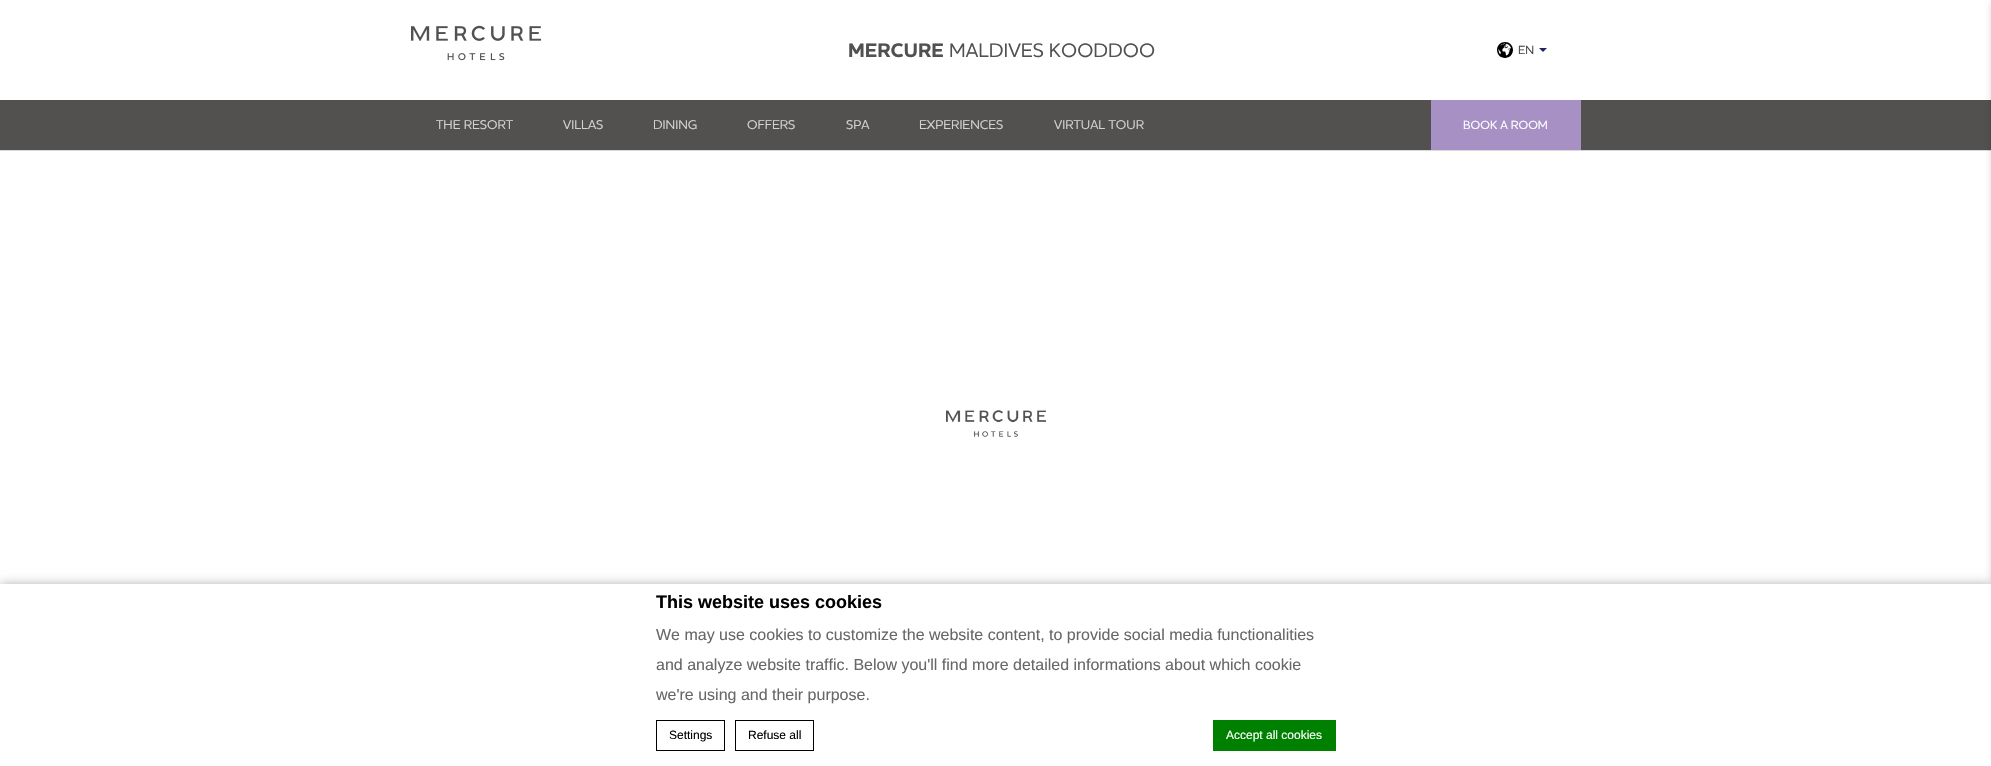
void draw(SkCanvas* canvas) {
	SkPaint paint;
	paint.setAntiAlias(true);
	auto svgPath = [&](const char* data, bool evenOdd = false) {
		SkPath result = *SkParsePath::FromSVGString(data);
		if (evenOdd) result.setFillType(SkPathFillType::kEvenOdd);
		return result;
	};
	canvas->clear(0xffffffff);
	canvas->save();
	canvas->clipRect(SkRect::MakeXYWH(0, 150, 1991, 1));
	paint.setColor(0x26000000);
	paint.setMaskFilter(SkMaskFilter::MakeBlur(kNormal_SkBlurStyle, 0.5));
	canvas->drawRect(SkRect::MakeXYWH(0, 1, 1991, 150), paint);
	paint.setMaskFilter(nullptr);
	canvas->restore();
	canvas->drawImageRect(SkImages::DeferredFromEncodedData(SkData::MakeFromFileName("img1.png")), SkRect::MakeXYWH(411, 25, 130, 36), SkSamplingOptions());
	SkFont f1(fontMgr->matchFamilyStyle("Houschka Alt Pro", SkFontStyle::Bold()), 20);
	f1.setSubpixel(true);
	paint.setColor(0xff53514f);
	canvas->drawString("MERCURE", 848, 57, f1, paint);
	SkFont f2(fontMgr->matchFamilyStyle("Houschka Alt Pro", SkFontStyle(500, SkFontStyle::kNormal_Width, SkFontStyle::kUpright_Slant)), 20);
	f2.setSubpixel(true);
	canvas->drawString("MALDIVES KOODDOO", 949, 57, f2, paint);
	canvas->drawImageRect(SkImages::DeferredFromEncodedData(SkData::MakeFromFileName("img2.png")), SkRect::MakeXYWH(1497, 42, 16, 16), SkSamplingOptions());
	SkFont f3(fontMgr->matchFamilyStyle("Houschka Alt Pro", SkFontStyle(500, SkFontStyle::kNormal_Width, SkFontStyle::kUpright_Slant)), 12);
	f3.setSubpixel(true);
	paint.setColor(0xff444444);
	canvas->drawString("EN", 1518, 54, f3, paint);
	paint.setColor(0xff20255f);
	canvas->drawPath(svgPath("M1547 48L1543 52L1539 48"), paint);
	paint.setColor(0xff53514f);
	canvas->drawRect(SkRect::MakeXYWH(0, 100, 1991, 50), paint);
	SkFont f4(fontMgr->matchFamilyStyle("Houschka Alt Pro", SkFontStyle(500, SkFontStyle::kNormal_Width, SkFontStyle::kUpright_Slant)), 13);
	f4.setSubpixel(true);
	paint.setColor(0xffd2d2d2);
	canvas->drawString("THE RESORT", 436, 129, f4, paint);
	canvas->drawString("VILLAS", 563, 129, f4, paint);
	canvas->drawString("DINING", 653, 129, f4, paint);
	canvas->drawString("OFFERS", 747, 129, f4, paint);
	canvas->drawString("SPA", 846, 129, f4, paint);
	canvas->drawString("EXPERIENCES", 919, 129, f4, paint);
	canvas->drawString("VIRTUAL TOUR", 1054, 129, f4, paint);
	paint.setColor(0xffa790c4);
	canvas->drawRect(SkRect::MakeXYWH(1431, 100, 150, 50), paint);
	paint.setColor(0xffffffff);
	canvas->drawString("BOOK A ROOM", 1463, 129, f3, paint);
	paint.setColor(0x26000000);
	paint.setMaskFilter(SkMaskFilter::MakeBlur(kNormal_SkBlurStyle, 3));
	canvas->drawRect(SkRect::MakeXYWH(1991, 3, 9, 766), paint);
	paint.setMaskFilter(nullptr);
	canvas->drawImageRect(SkImages::DeferredFromEncodedData(SkData::MakeFromFileName("img3.png")), SkRect::MakeXYWH(946, 410, 100, 27), SkSamplingOptions());
	paint.setColor(0x4d000000);
	paint.setMaskFilter(SkMaskFilter::MakeBlur(kNormal_SkBlurStyle, 5));
	canvas->drawRect(SkRect::MakeXYWH(0, 584, 1991, 182), paint);
	paint.setMaskFilter(nullptr);
	paint.setColor(0xffffffff);
	canvas->drawRect(SkRect::MakeXYWH(0, 584, 1991, 182), paint);
	SkFont f5(fontMgr->matchFamilyStyle("Liberation Sans", SkFontStyle::Bold()), 18);
	f5.setSubpixel(true);
	paint.setColor(0xff000000);
	canvas->drawString("This website uses cookies", 656, 608, f5, paint);
	SkFont f6(fontMgr->matchFamilyStyle("Liberation Sans", SkFontStyle::Normal()), 16);
	f6.setSubpixel(true);
	paint.setColor(0xff676767);
	canvas->drawString("We may use cookies to customize the website content, to provide social media functionalities", 656, 640, f6, paint);
	canvas->drawString("and analyze website traffic. Below you'll find more detailed informations about which cookie", 656, 670, f6, paint);
	canvas->drawString("we're using and their purpose.", 656, 700, f6, paint);
	paint.setStroke(true);
	paint.setStrokeWidth(1);
	paint.setColor(0xff000000);
	canvas->drawRect(SkRect::MakeXYWH(656.5, 720.5, 68, 30), paint);
	SkFont f7(fontMgr->matchFamilyStyle("Liberation Sans", SkFontStyle::Normal()), 12);
	f7.setSubpixel(true);
	paint.setStroke(false);
	canvas->drawString("Settings", 669, 739, f7, paint);
	paint.setStroke(true);
	canvas->drawRect(SkRect::MakeXYWH(735.5, 720.5, 78, 30), paint);
	paint.setStroke(false);
	canvas->drawString("Refuse all", 748, 739, f7, paint);
	paint.setColor(0xff008000);
	canvas->drawRect(SkRect::MakeXYWH(1213, 720, 123, 31), paint);
	paint.setColor(0xffffffff);
	canvas->drawString("Accept all cookies", 1226, 739, f7, paint);
}
